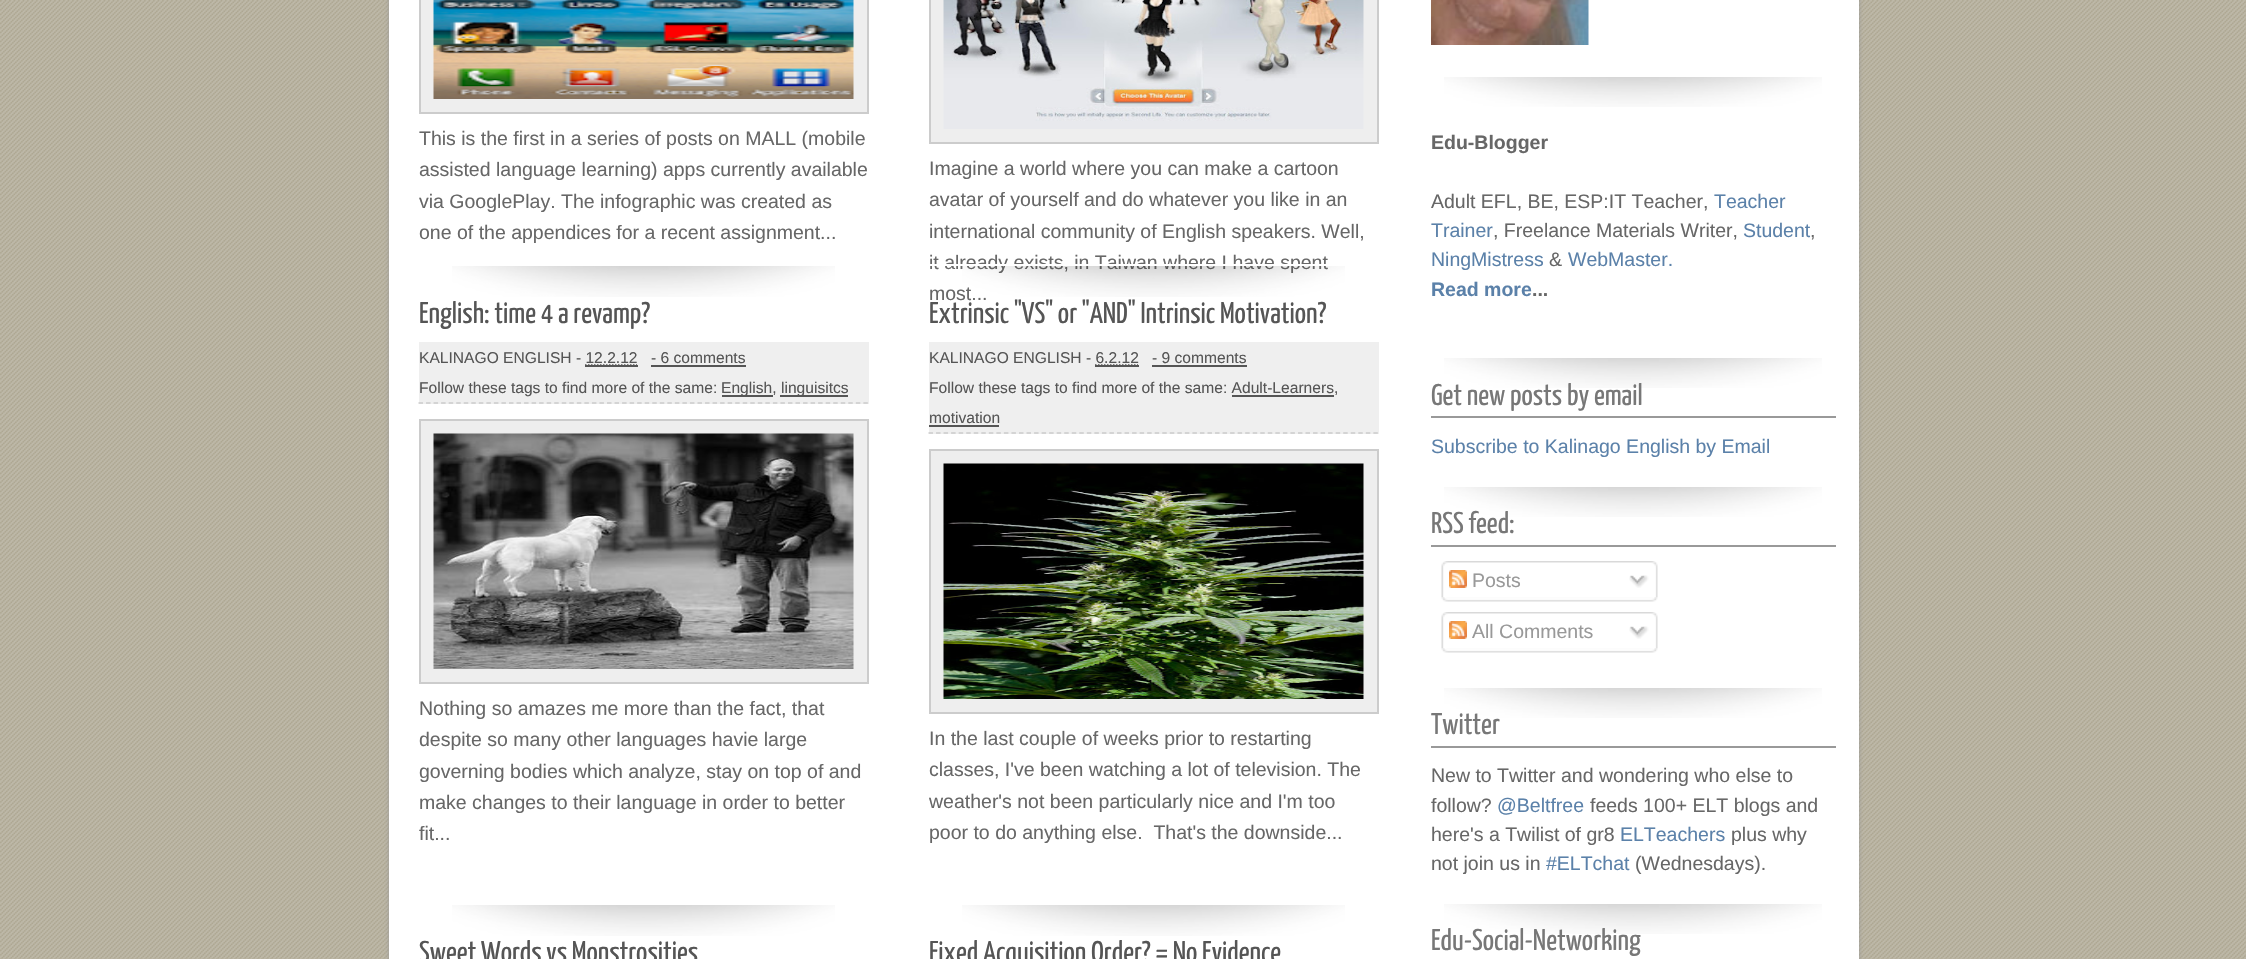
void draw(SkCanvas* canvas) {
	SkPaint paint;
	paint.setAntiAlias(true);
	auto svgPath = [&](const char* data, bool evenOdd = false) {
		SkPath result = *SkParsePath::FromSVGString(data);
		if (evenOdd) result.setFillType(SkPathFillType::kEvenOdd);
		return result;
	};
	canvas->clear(0xffffffff);
	canvas->drawImageRect(SkImages::DeferredFromEncodedData(SkData::MakeFromFileName("img1.png")), SkRect::MakeXYWH(0, 0, 2246, 959), SkSamplingOptions());
	paint.setColor(0xff999999);
	paint.setMaskFilter(SkMaskFilter::MakeBlur(kNormal_SkBlurStyle, 2));
	canvas->drawRoundRect(SkRect::MakeXYWH(389, -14, 1470, 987), 8, 8, paint);
	paint.setMaskFilter(nullptr);
	paint.setColor(0xffffffff);
	canvas->drawRect(SkRect::MakeXYWH(389, 0, 1470, 959), paint);
	paint.setColor(0xffeeeeee);
	canvas->drawRect(SkRect::MakeXYWH(420, -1, 448, 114), paint);
	paint.setStroke(true);
	paint.setStrokeWidth(2);
	paint.setColor(0xffcccccc);
	canvas->drawRect(SkRect::MakeXYWH(420, -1, 448, 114), paint);
	canvas->drawImageRect(SkImages::DeferredFromEncodedData(SkData::MakeFromFileName("img2.png")), SkRect::MakeXYWH(433, 0, 421, 99), SkSamplingOptions());
	SkFont f1(fontMgr->matchFamilyStyle("Liberation Sans", SkFontStyle::Normal()), 19.5);
	f1.setSubpixel(true);
	paint.setStroke(false);
	paint.setColor(0xff676767);
	canvas->drawString("This is the first in a series of posts on MALL (mobile", 419, 145, f1, paint);
	canvas->drawString("assisted language learning) apps currently available", 419, 176, f1, paint);
	canvas->drawString("via GooglePlay. The infographic was created as", 419, 208, f1, paint);
	canvas->drawString("one of the appendices for a recent assignment...", 419, 239, f1, paint);
	paint.setColor(0xffeeeeee);
	canvas->drawRect(SkRect::MakeXYWH(930, -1, 448, 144), paint);
	paint.setStroke(true);
	paint.setColor(0xffcccccc);
	canvas->drawRect(SkRect::MakeXYWH(930, -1, 448, 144), paint);
	canvas->drawImageRect(SkImages::DeferredFromEncodedData(SkData::MakeFromFileName("img3.png")), SkRect::MakeXYWH(943, 0, 421, 129), SkSamplingOptions());
	paint.setStroke(false);
	paint.setColor(0xff676767);
	canvas->drawString("Imagine a world where you can make a cartoon", 929, 175, f1, paint);
	canvas->drawString("avatar of yourself and do whatever you like in an", 929, 206, f1, paint);
	canvas->drawString("international community of English speakers. Well,", 929, 238, f1, paint);
	canvas->drawString("it already exists, in Taiwan where I have spent", 929, 269, f1, paint);
	canvas->drawString("most...", 929, 300, f1, paint);
	canvas->drawImageRect(SkImages::DeferredFromEncodedData(SkData::MakeFromFileName("img4.png")), SkRect::MakeXYWH(452, 266, 383, 31), SkSamplingOptions());
	SkFont f2(fontMgr->matchFamilyStyle("Yanone Kaffeesatz", SkFontStyle(200, SkFontStyle::kNormal_Width, SkFontStyle::kUpright_Slant)), 30);
	f2.setSubpixel(true);
	paint.setColor(0xff555555);
	canvas->drawString("English: time 4 a revamp?", 419, 323, f2, paint);
	paint.setColor(0xffefefef);
	canvas->drawRect(SkRect::MakeXYWH(419, 342, 450, 62), paint);
	paint.setStroke(true);
	paint.setStrokeWidth(1.5);
	paint.setColor(0xffcccccc);
	paint.setPathEffect(SkDashPathEffect::Make({{4.5f, 3.04f}}, 0));
	canvas->drawPath(svgPath("M418.5 403H868.5"), paint);
	paint.setPathEffect(nullptr);
	SkFont f3(fontMgr->matchFamilyStyle("Liberation Sans", SkFontStyle::Normal()), 15.6);
	f3.setSubpixel(true);
	paint.setStroke(false);
	paint.setColor(0xff555555);
	canvas->drawString("KALINAGO ENGLISH - 12.2.12", 419, 363, f3, paint);
	paint.setStroke(true);
	paint.setPathEffect(SkDashPathEffect::Make({{1.5f, 1.5f}}, 0));
	canvas->drawPath(svgPath("M585 365H637"), paint);
	paint.setPathEffect(nullptr);
	paint.setStroke(false);
	canvas->drawRect(SkRect::MakeXYWH(585, 365, 53, 2), paint);
	canvas->drawString("- 6 comments", 651, 363, f3, paint);
	canvas->drawRect(SkRect::MakeXYWH(651, 365, 95, 2), paint);
	canvas->drawString("Follow these tags to find more of the same:", 419, 393, f3, paint);
	canvas->drawRect(SkRect::MakeXYWH(722, 395, 51, 2), paint);
	canvas->drawString("English,", 721, 393, f3, paint);
	canvas->drawRect(SkRect::MakeXYWH(780, 395, 68, 2), paint);
	canvas->drawString("linguisitcs", 781, 393, f3, paint);
	paint.setColor(0xffeeeeee);
	canvas->drawRect(SkRect::MakeXYWH(420, 420, 448, 263), paint);
	paint.setStroke(true);
	paint.setStrokeWidth(2);
	paint.setColor(0xffcccccc);
	canvas->drawRect(SkRect::MakeXYWH(420, 420, 448, 263), paint);
	canvas->drawImageRect(SkImages::DeferredFromEncodedData(SkData::MakeFromFileName("img5.png")), SkRect::MakeXYWH(433, 433, 421, 236), SkSamplingOptions());
	paint.setStroke(false);
	paint.setColor(0xff676767);
	canvas->drawString("Nothing so amazes me more than the fact, that", 419, 715, f1, paint);
	canvas->drawString("despite so many other languages havie large", 419, 746, f1, paint);
	canvas->drawString("governing bodies which analyze, stay on top of and", 419, 778, f1, paint);
	canvas->drawString("make changes to their language in order to better", 419, 809, f1, paint);
	canvas->drawString("fit...", 419, 840, f1, paint);
	canvas->drawImageRect(SkImages::DeferredFromEncodedData(SkData::MakeFromFileName("img6.png")), SkRect::MakeXYWH(962, 266, 383, 31), SkSamplingOptions());
	paint.setColor(0xffffffff);
	canvas->drawRect(SkRect::MakeXYWH(929, 264, 397, 2), paint);
	paint.setColor(0xff555555);
	canvas->drawString("Extrinsic \"VS\" or \"AND\" Intrinsic Motivation?", 929, 323, f2, paint);
	paint.setColor(0xffefefef);
	canvas->drawRect(SkRect::MakeXYWH(929, 342, 450, 92), paint);
	paint.setStroke(true);
	paint.setStrokeWidth(1.5);
	paint.setColor(0xffcccccc);
	paint.setPathEffect(SkDashPathEffect::Make({{4.5f, 3.04f}}, 0));
	canvas->drawPath(svgPath("M928.5 433H1378.5"), paint);
	paint.setPathEffect(nullptr);
	paint.setStroke(false);
	paint.setColor(0xff555555);
	canvas->drawString("KALINAGO ENGLISH - 6.2.12", 929, 363, f3, paint);
	paint.setStroke(true);
	paint.setPathEffect(SkDashPathEffect::Make({{1.5f, 1.5f}}, 0));
	canvas->drawPath(svgPath("M1095 365H1138"), paint);
	paint.setPathEffect(nullptr);
	paint.setStroke(false);
	canvas->drawRect(SkRect::MakeXYWH(1095, 365, 44, 2), paint);
	canvas->drawString("- 9 comments", 1152, 363, f3, paint);
	canvas->drawRect(SkRect::MakeXYWH(1152, 365, 95, 2), paint);
	canvas->drawString("Follow these tags to find more of the same: Adult-Learners,", 929, 393, f3, paint);
	canvas->drawRect(SkRect::MakeXYWH(1232, 395, 102, 2), paint);
	canvas->drawString("motivation", 929, 423, f3, paint);
	canvas->drawRect(SkRect::MakeXYWH(929, 425, 70, 2), paint);
	paint.setColor(0xffeeeeee);
	canvas->drawRect(SkRect::MakeXYWH(930, 450, 448, 263), paint);
	paint.setStroke(true);
	paint.setStrokeWidth(2);
	paint.setColor(0xffcccccc);
	canvas->drawRect(SkRect::MakeXYWH(930, 450, 448, 263), paint);
	canvas->drawImageRect(SkImages::DeferredFromEncodedData(SkData::MakeFromFileName("img7.png")), SkRect::MakeXYWH(943, 463, 421, 236), SkSamplingOptions());
	paint.setStroke(false);
	paint.setColor(0xff676767);
	canvas->drawString("In the last couple of weeks prior to restarting", 929, 745, f1, paint);
	canvas->drawString("classes, I've been watching a lot of television. The", 929, 776, f1, paint);
	canvas->drawString("weather's not been particularly nice and I'm too", 929, 808, f1, paint);
	canvas->drawString("poor to do anything else.  That's the downside...", 929, 839, f1, paint);
	canvas->drawImageRect(SkImages::DeferredFromEncodedData(SkData::MakeFromFileName("img8.png")), SkRect::MakeXYWH(452, 905, 383, 31), SkSamplingOptions());
	paint.setColor(0xff555555);
	canvas->drawString("Sweet Words vs Monstrosities", 419, 962, f2, paint);
	canvas->drawImageRect(SkImages::DeferredFromEncodedData(SkData::MakeFromFileName("img9.png")), SkRect::MakeXYWH(962, 905, 383, 31), SkSamplingOptions());
	canvas->drawString("Fixed Acquisition Order? = No Evidence", 929, 962, f2, paint);
	canvas->drawImageRect(SkImages::DeferredFromEncodedData(SkData::MakeFromFileName("img10.png")), SkRect::MakeXYWH(1431, 0, 158, 45), SkSamplingOptions());
	canvas->drawImageRect(SkImages::DeferredFromEncodedData(SkData::MakeFromFileName("img11.png")), SkRect::MakeXYWH(1444, 77, 378, 30), SkSamplingOptions());
	SkFont f4(fontMgr->matchFamilyStyle("Liberation Sans", SkFontStyle::Bold()), 19.5);
	f4.setSubpixel(true);
	paint.setColor(0xff676767);
	canvas->drawString("Edu-Blogger", 1431, 149, f4, paint);
	canvas->drawString("Adult EFL, BE, ESP:IT Teacher,", 1431, 208, f1, paint);
	paint.setColor(0xff5b81a9);
	canvas->drawString("Teacher", 1714, 208, f1, paint);
	canvas->drawString("Trainer", 1431, 237, f1, paint);
	paint.setColor(0xff676767);
	canvas->drawString(", Freelance Materials Writer,", 1493, 237, f1, paint);
	paint.setColor(0xff5b81a9);
	canvas->drawString("Student", 1743, 237, f1, paint);
	paint.setColor(0xff676767);
	canvas->drawString(",", 1810, 237, f1, paint);
	paint.setColor(0xff5b81a9);
	canvas->drawString("NingMistress", 1431, 266, f1, paint);
	paint.setColor(0xff676767);
	canvas->drawString("&", 1549, 266, f1, paint);
	paint.setColor(0xff5b81a9);
	canvas->drawString("WebMaster.", 1568, 266, f1, paint);
	canvas->drawString("Read more", 1431, 296, f4, paint);
	paint.setColor(0xff676767);
	canvas->drawString("...", 1532, 296, f4, paint);
	canvas->drawImageRect(SkImages::DeferredFromEncodedData(SkData::MakeFromFileName("img12.png")), SkRect::MakeXYWH(1444, 358, 378, 30), SkSamplingOptions());
	paint.setColor(0xff999999);
	canvas->drawRect(SkRect::MakeXYWH(1431, 416, 405, 2), paint);
	paint.setColor(0xff777777);
	canvas->drawString("Get new posts by email", 1431, 405, f2, paint);
	paint.setColor(0xff5b81a9);
	canvas->drawString("Subscribe to Kalinago English by Email", 1431, 453, f1, paint);
	canvas->drawImageRect(SkImages::DeferredFromEncodedData(SkData::MakeFromFileName("img12.png")), SkRect::MakeXYWH(1444, 487, 378, 30), SkSamplingOptions());
	paint.setColor(0xff999999);
	canvas->drawRect(SkRect::MakeXYWH(1431, 545, 405, 2), paint);
	paint.setColor(0xff777777);
	canvas->drawString("RSS feed:", 1431, 533, f2, paint);
	canvas->drawImageRect(SkImages::DeferredFromEncodedData(SkData::MakeFromFileName("img13.png")), SkRect::MakeXYWH(1441, 561, 217, 36), SkSamplingOptions());
	canvas->drawImageRect(SkImages::DeferredFromEncodedData(SkData::MakeFromFileName("img14.png")), SkRect::MakeXYWH(1449, 570, 18, 18), SkSamplingOptions());
	paint.setColor(0xff999999);
	canvas->drawString("Posts", 1472, 587, f1, paint);
	canvas->drawImageRect(SkImages::DeferredFromEncodedData(SkData::MakeFromFileName("img15.png")), SkRect::MakeXYWH(1629, 575, 20, 13), SkSamplingOptions());
	canvas->drawImageRect(SkImages::DeferredFromEncodedData(SkData::MakeFromFileName("img16.png")), SkRect::MakeXYWH(1441, 597, 217, 5), SkSamplingOptions());
	canvas->drawImageRect(SkImages::DeferredFromEncodedData(SkData::MakeFromFileName("img13.png")), SkRect::MakeXYWH(1441, 612, 217, 36), SkSamplingOptions());
	canvas->drawImageRect(SkImages::DeferredFromEncodedData(SkData::MakeFromFileName("img14.png")), SkRect::MakeXYWH(1449, 621, 18, 18), SkSamplingOptions());
	canvas->drawString("All Comments", 1472, 638, f1, paint);
	canvas->drawImageRect(SkImages::DeferredFromEncodedData(SkData::MakeFromFileName("img15.png")), SkRect::MakeXYWH(1629, 626, 20, 13), SkSamplingOptions());
	canvas->drawImageRect(SkImages::DeferredFromEncodedData(SkData::MakeFromFileName("img16.png")), SkRect::MakeXYWH(1441, 648, 217, 5), SkSamplingOptions());
	canvas->drawImageRect(SkImages::DeferredFromEncodedData(SkData::MakeFromFileName("img12.png")), SkRect::MakeXYWH(1444, 688, 378, 30), SkSamplingOptions());
	canvas->drawRect(SkRect::MakeXYWH(1431, 746, 405, 2), paint);
	paint.setColor(0xff777777);
	canvas->drawString("Twitter", 1431, 734, f2, paint);
	paint.setColor(0xff676767);
	canvas->drawString("New to Twitter and wondering who else to", 1431, 782, f1, paint);
	canvas->drawString("follow?", 1431, 812, f1, paint);
	paint.setColor(0xff5b81a9);
	canvas->drawString("@Beltfree", 1497, 812, f1, paint);
	paint.setColor(0xff676767);
	canvas->drawString("feeds 100+ ELT blogs and", 1590, 812, f1, paint);
	canvas->drawString("here's a Twilist of gr8", 1431, 841, f1, paint);
	paint.setColor(0xff5b81a9);
	canvas->drawString("ELTeachers", 1620, 841, f1, paint);
	paint.setColor(0xff676767);
	canvas->drawString("plus why", 1731, 841, f1, paint);
	canvas->drawString("not join us in", 1431, 870, f1, paint);
	paint.setColor(0xff5b81a9);
	canvas->drawString("#ELTchat", 1546, 870, f1, paint);
	paint.setColor(0xff676767);
	canvas->drawString("(Wednesdays).", 1635, 870, f1, paint);
	canvas->drawImageRect(SkImages::DeferredFromEncodedData(SkData::MakeFromFileName("img12.png")), SkRect::MakeXYWH(1444, 904, 378, 30), SkSamplingOptions());
	paint.setColor(0xff777777);
	canvas->drawString("Edu-Social-Networking", 1431, 950, f2, paint);
}
